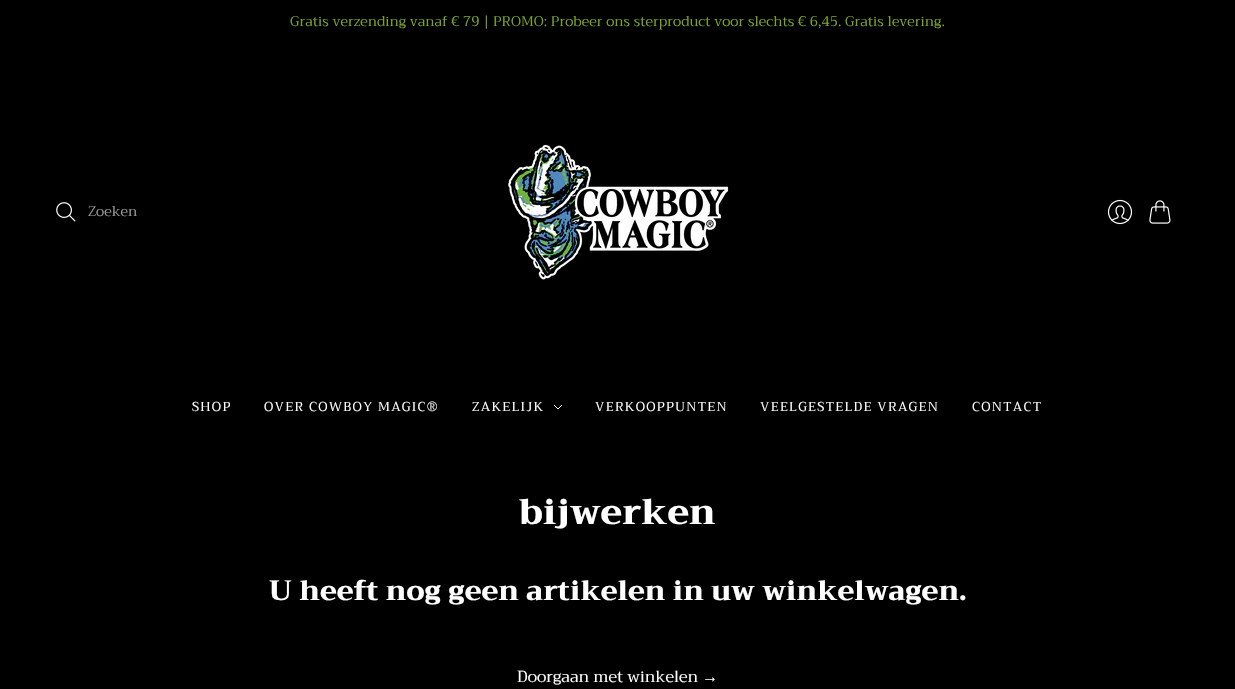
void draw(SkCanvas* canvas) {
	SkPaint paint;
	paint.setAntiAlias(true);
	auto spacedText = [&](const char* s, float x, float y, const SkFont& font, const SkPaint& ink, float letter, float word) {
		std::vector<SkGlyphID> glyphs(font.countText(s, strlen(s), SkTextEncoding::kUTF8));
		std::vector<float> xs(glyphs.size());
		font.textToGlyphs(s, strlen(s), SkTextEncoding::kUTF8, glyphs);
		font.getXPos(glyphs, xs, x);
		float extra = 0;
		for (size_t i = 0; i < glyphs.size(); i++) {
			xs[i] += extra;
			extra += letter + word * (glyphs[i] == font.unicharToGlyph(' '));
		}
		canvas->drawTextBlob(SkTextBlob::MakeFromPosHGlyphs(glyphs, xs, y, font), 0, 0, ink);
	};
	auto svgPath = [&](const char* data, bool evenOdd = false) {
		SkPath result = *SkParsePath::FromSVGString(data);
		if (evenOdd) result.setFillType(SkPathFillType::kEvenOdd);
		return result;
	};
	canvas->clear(0xff000000);
	SkFont f1(fontMgr->matchFamilyStyle("Trirong", SkFontStyle::Normal()), 14);
	f1.setSubpixel(true);
	paint.setColor(0xff79a429);
	canvas->drawString("Gratis verzending vanaf € 79 | PROMO: Probeer ons sterproduct voor slechts € 6,45. Gratis levering.", 290, 26, f1, paint);
	canvas->drawImageRect(SkImages::DeferredFromEncodedData(SkData::MakeFromFileName("img1.png")), SkRect::MakeXYWH(56, 202, 20, 20), SkSamplingOptions());
	paint.setColor(0xff999999);
	canvas->drawString("Zoeken", 88, 216, f1, paint);
	canvas->drawImageRect(SkImages::DeferredFromEncodedData(SkData::MakeFromFileName("img2.png")), SkRect::MakeXYWH(1107, 199, 26, 26), SkSamplingOptions());
	canvas->drawImageRect(SkImages::DeferredFromEncodedData(SkData::MakeFromFileName("img3.png")), SkRect::MakeXYWH(1149, 200, 22, 24), SkSamplingOptions());
	canvas->drawImageRect(SkImages::DeferredFromEncodedData(SkData::MakeFromFileName("img4.png")), SkRect::MakeXYWH(508, 144, 221, 136), SkSamplingOptions());
	SkFont f2(fontMgr->matchFamilyStyle("Trirong", SkFontStyle::Normal()), 13);
	f2.setSubpixel(true);
	paint.setColor(0xffffffff);
	spacedText("SHOP", 192, 411, f2, paint, 1.25, 0);
	spacedText("OVER COWBOY MAGIC®", 264, 411, f2, paint, 1.25, 0);
	spacedText("ZAKELIJK", 472, 411, f2, paint, 1.25, 0);
	paint.setStroke(true);
	paint.setStrokeWidth(1);
	canvas->drawPath(svgPath("M554 405L558 409L562 405"), paint);
	paint.setStroke(false);
	spacedText("VERKOOPPUNTEN", 595, 411, f2, paint, 1.25, 0);
	spacedText("VEELGESTELDE VRAGEN", 760, 411, f2, paint, 1.25, 0);
	spacedText("CONTACT", 972, 411, f2, paint, 1.25, 0);
	SkFont f3(fontMgr->matchFamilyStyle("Trirong", SkFontStyle(800, SkFontStyle::kNormal_Width, SkFontStyle::kUpright_Slant)), 36);
	f3.setSubpixel(true);
	canvas->drawString("bijwerken", 519, 524, f3, paint);
	SkFont f4(fontMgr->matchFamilyStyle("Trirong", SkFontStyle(800, SkFontStyle::kNormal_Width, SkFontStyle::kUpright_Slant)), 28);
	f4.setSubpixel(true);
	canvas->drawString("U heeft nog geen artikelen in uw winkelwagen.", 269, 600, f4, paint);
	SkFont f5(fontMgr->matchFamilyStyle("Trirong", SkFontStyle::Normal()), 16);
	f5.setSubpixel(true);
	canvas->drawString("Doorgaan met winkelen", 517, 682, f5, paint);
	SkFont f6(fontMgr->matchFamilyStyle("Liberation Serif", SkFontStyle::Normal()), 16);
	f6.setSubpixel(true);
	canvas->drawString("→", 702, 682, f6, paint);
}
